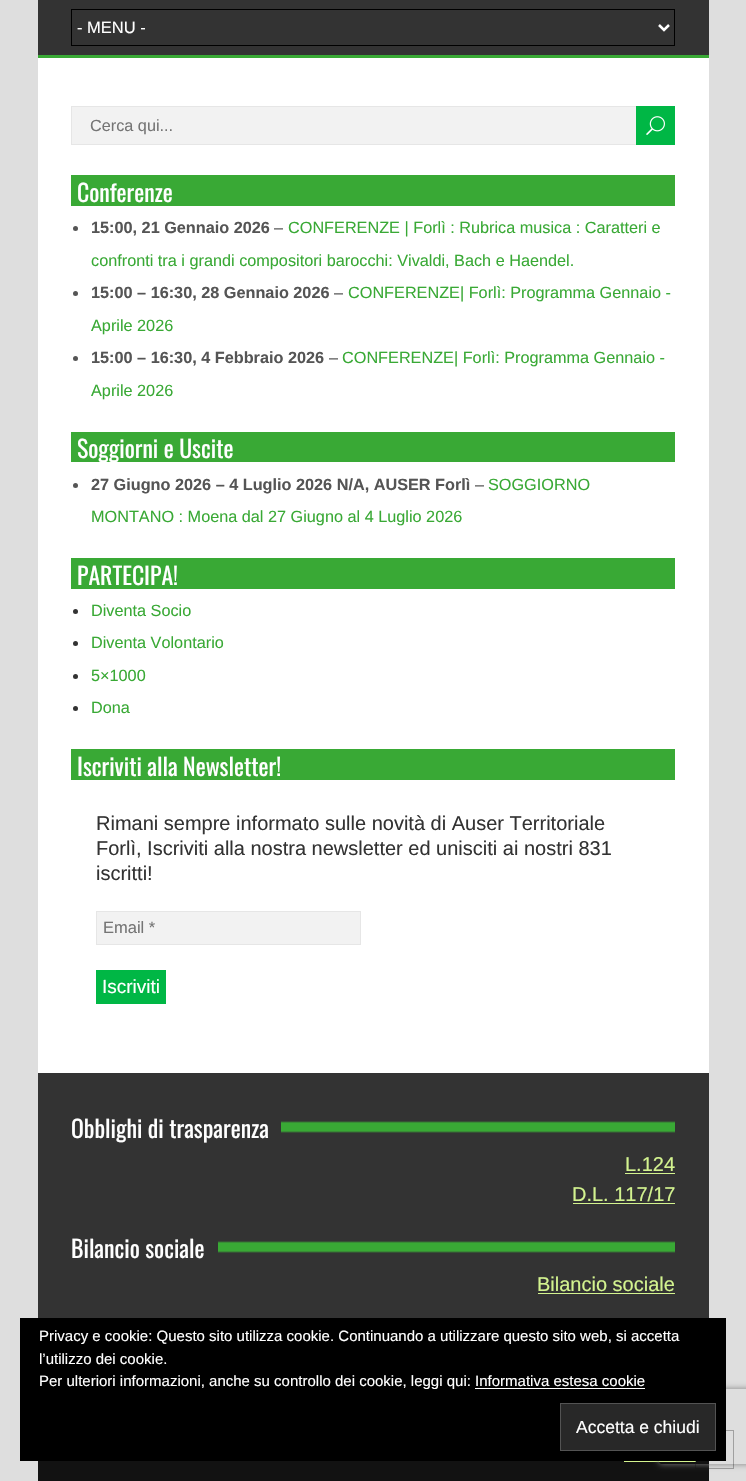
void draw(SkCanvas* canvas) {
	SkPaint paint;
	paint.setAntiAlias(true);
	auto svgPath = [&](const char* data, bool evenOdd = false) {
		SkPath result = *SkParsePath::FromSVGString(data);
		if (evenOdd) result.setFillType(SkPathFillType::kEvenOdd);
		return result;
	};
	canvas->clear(0xffdedede);
	paint.setColor(0xffffffff);
	canvas->drawRect(SkRect::MakeXYWH(38, 58, 671, 1015), paint);
	paint.setColor(0xff333333);
	canvas->drawRect(SkRect::MakeXYWH(38, 0, 671, 55), paint);
	paint.setColor(0xff39a935);
	canvas->drawRect(SkRect::MakeXYWH(38, 55, 671, 3), paint);
	paint.setStroke(true);
	paint.setStrokeWidth(1);
	paint.setColor(0xff000000);
	canvas->drawRect(SkRect::MakeXYWH(71.5, 9.5, 603, 36), paint);
	paint.setStrokeWidth(2.5);
	paint.setColor(0xffffffff);
	canvas->drawPath(svgPath("M659 25L664 30L669 25"), paint);
	SkFont f1(fontMgr->matchFamilyStyle("Liberation Sans", SkFontStyle::Normal()), 16.5);
	f1.setSubpixel(true);
	paint.setStroke(false);
	canvas->drawString("- MENU -", 77, 33, f1, paint);
	paint.setColor(0xfff2f2f2);
	canvas->drawRect(SkRect::MakeXYWH(72, 107, 564, 37), paint);
	paint.setStroke(true);
	paint.setStrokeWidth(1);
	paint.setColor(0xffe6e6e6);
	canvas->drawRect(SkRect::MakeXYWH(71.5, 106.5, 599, 38), paint);
	SkFont f2(fontMgr->matchFamilyStyle("Liberation Sans", SkFontStyle::Normal()), 16.25);
	f2.setSubpixel(true);
	paint.setStroke(false);
	paint.setColor(0xff757575);
	canvas->drawString("Cerca qui...", 90, 131, f2, paint);
	paint.setColor(0xff00b745);
	canvas->drawRect(SkRect::MakeXYWH(636, 106, 39, 39), paint);
	canvas->drawImageRect(SkImages::DeferredFromEncodedData(SkData::MakeFromFileName("img1.png")), SkRect::MakeXYWH(646, 116, 19, 19), SkSamplingOptions());
	paint.setColor(0xff39a935);
	canvas->drawRect(SkRect::MakeXYWH(71, 175, 604, 31), paint);
	SkFont f3(fontMgr->matchFamilyStyle("Oswald", SkFontStyle::Normal()), 23.75);
	f3.setSubpixel(true);
	paint.setColor(0xffffffff);
	canvas->drawString("Conferenze", 77, 202, f3, paint);
	paint.setColor(0xff555555);
	canvas->drawCircle(75.5, 228.5, 2.5, paint);
	SkFont f4(fontMgr->matchFamilyStyle("Liberation Sans", SkFontStyle::Bold()), 16.25);
	f4.setSubpixel(true);
	canvas->drawString("15:00, 21 Gennaio 2026", 91, 233, f4, paint);
	canvas->drawString("–", 274, 233, f2, paint);
	paint.setColor(0xff39a935);
	canvas->drawString("CONFERENZE | Forlì : Rubrica musica : Caratteri e", 288, 233, f2, paint);
	canvas->drawString("confronti tra i grandi compositori barocchi: Vivaldi, Bach e Haendel.", 91, 266, f2, paint);
	paint.setColor(0xff555555);
	canvas->drawCircle(75.5, 293.5, 2.5, paint);
	canvas->drawString("15:00 – 16:30, 28 Gennaio 2026", 91, 298, f4, paint);
	canvas->drawString("–", 334, 298, f2, paint);
	paint.setColor(0xff39a935);
	canvas->drawString("CONFERENZE| Forlì: Programma Gennaio -", 348, 298, f2, paint);
	canvas->drawString("Aprile 2026", 91, 331, f2, paint);
	paint.setColor(0xff555555);
	canvas->drawCircle(75.5, 358.5, 2.5, paint);
	canvas->drawString("15:00 – 16:30, 4 Febbraio 2026", 91, 363, f4, paint);
	canvas->drawString("–", 329, 363, f2, paint);
	paint.setColor(0xff39a935);
	canvas->drawString("CONFERENZE| Forlì: Programma Gennaio -", 342, 363, f2, paint);
	canvas->drawString("Aprile 2026", 91, 396, f2, paint);
	canvas->drawRect(SkRect::MakeXYWH(71, 432, 604, 30), paint);
	paint.setColor(0xffffffff);
	canvas->drawString("Soggiorni e Uscite", 77, 458, f3, paint);
	paint.setColor(0xff555555);
	canvas->drawCircle(75.5, 485.5, 2.5, paint);
	canvas->drawString("27 Giugno 2026 – 4 Luglio 2026 N/A, AUSER Forlì", 91, 490, f4, paint);
	canvas->drawString("–", 475, 490, f2, paint);
	paint.setColor(0xff39a935);
	canvas->drawString("SOGGIORNO", 488, 490, f2, paint);
	canvas->drawString("MONTANO : Moena dal 27 Giugno al 4 Luglio 2026", 91, 522, f2, paint);
	canvas->drawRect(SkRect::MakeXYWH(71, 558, 604, 31), paint);
	paint.setColor(0xffffffff);
	canvas->drawString("PARTECIPA!", 77, 585, f3, paint);
	paint.setColor(0xff333333);
	canvas->drawCircle(75.5, 611.5, 2.5, paint);
	paint.setColor(0xff39a935);
	canvas->drawString("Diventa Socio", 91, 616, f2, paint);
	paint.setColor(0xff333333);
	canvas->drawCircle(75.5, 643.5, 2.5, paint);
	paint.setColor(0xff39a935);
	canvas->drawString("Diventa Volontario", 91, 648, f2, paint);
	paint.setColor(0xff333333);
	canvas->drawCircle(75.5, 676.5, 2.5, paint);
	paint.setColor(0xff39a935);
	canvas->drawString("5×1000", 91, 681, f2, paint);
	paint.setColor(0xff333333);
	canvas->drawCircle(75.5, 708.5, 2.5, paint);
	paint.setColor(0xff39a935);
	canvas->drawString("Dona", 91, 713, f2, paint);
	canvas->drawRect(SkRect::MakeXYWH(71, 749, 604, 31), paint);
	paint.setColor(0xffffffff);
	canvas->drawString("Iscriviti alla Newsletter!", 77, 776, f3, paint);
	SkFont f5(fontMgr->matchFamilyStyle("Liberation Sans", SkFontStyle::Normal()), 20);
	f5.setSubpixel(true);
	paint.setColor(0xff333333);
	canvas->drawString("Rimani sempre informato sulle novità di Auser Territoriale", 96, 830, f5, paint);
	canvas->drawString("Forlì, Iscriviti alla nostra newsletter ed unisciti ai nostri 831", 96, 855, f5, paint);
	canvas->drawString("iscritti!", 96, 880, f5, paint);
	paint.setColor(0xfff2f2f2);
	canvas->drawRect(SkRect::MakeXYWH(96.5, 911.5, 264, 33), paint);
	paint.setStroke(true);
	paint.setColor(0xffe6e6e6);
	canvas->drawRect(SkRect::MakeXYWH(96.5, 911.5, 264, 33), paint);
	paint.setStroke(false);
	paint.setColor(0xff757575);
	canvas->drawString("Email *", 103, 933, f1, paint);
	paint.setColor(0xff00b745);
	canvas->drawRect(SkRect::MakeXYWH(96, 970, 70, 34), paint);
	SkFont f6(fontMgr->matchFamilyStyle("Liberation Sans", SkFontStyle::Normal()), 19);
	f6.setSubpixel(true);
	paint.setColor(0xffffffff);
	canvas->drawString("Iscriviti", 102, 993, f6, paint);
	paint.setColor(0xff333333);
	canvas->drawRect(SkRect::MakeXYWH(38, 1073, 671, 245), paint);
	canvas->drawImageRect(SkImages::DeferredFromEncodedData(SkData::MakeFromFileName("img2.png")), SkRect::MakeXYWH(281, 1121, 394, 12), SkSamplingOptions());
	paint.setColor(0xffffffff);
	canvas->drawString("Obblighi di trasparenza", 71, 1138, f3, paint);
	paint.setColor(0xffd3f38f);
	canvas->drawString("L.124", 625, 1171, f5, paint);
	canvas->drawRect(SkRect::MakeXYWH(625, 1173, 50, 1), paint);
	canvas->drawString("D.L. 117/17", 572, 1201, f5, paint);
	canvas->drawRect(SkRect::MakeXYWH(573, 1203, 102, 1), paint);
	canvas->drawImageRect(SkImages::DeferredFromEncodedData(SkData::MakeFromFileName("img3.png")), SkRect::MakeXYWH(218, 1241, 457, 12), SkSamplingOptions());
	paint.setColor(0xffffffff);
	canvas->drawString("Bilancio sociale", 71, 1258, f3, paint);
	paint.setColor(0xffd3f38f);
	canvas->drawString("Bilancio sociale", 537, 1291, f5, paint);
	canvas->drawRect(SkRect::MakeXYWH(538, 1293, 137, 1), paint);
	paint.setColor(0xff121212);
	canvas->drawRect(SkRect::MakeXYWH(38, 1461, 671, 20), paint);
	paint.setColor(0xffd3f38f);
	canvas->drawRect(SkRect::MakeXYWH(624, 1461, 72, 1), paint);
	canvas->save();
	canvas->clipPath(svgPath("M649 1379H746V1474H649ZM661.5 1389H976.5C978 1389 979 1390 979 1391.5V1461.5C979 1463 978 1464 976.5 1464H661.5C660 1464 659 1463 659 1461.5V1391.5C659 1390 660 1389 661.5 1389Z", true), true);
	paint.setColor(0xff808080);
	paint.setMaskFilter(SkMaskFilter::MakeBlur(kNormal_SkBlurStyle, 3));
	canvas->drawRoundRect(SkRect::MakeXYWH(659, 1389, 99, 75), 2.5, 2.5, paint);
	paint.setMaskFilter(nullptr);
	canvas->restore();
	paint.setStroke(true);
	paint.setColor(0x4d111111);
	canvas->drawRect(SkRect::MakeXYWH(695.5, 1430.5, 38, 38), paint);
	paint.setStroke(false);
	paint.setColor(0xff000000);
	canvas->drawRect(SkRect::MakeXYWH(20, 1318, 706, 143), paint);
	SkFont f7(fontMgr->matchFamilyStyle("Liberation Sans", SkFontStyle::Normal()), 15);
	f7.setSubpixel(true);
	paint.setColor(0xffffffff);
	canvas->drawString("Privacy e cookie: Questo sito utilizza cookie. Continuando a utilizzare questo sito web, si accetta", 39, 1341, f7, paint);
	canvas->drawString("l’utilizzo dei cookie.", 39, 1364, f7, paint);
	canvas->drawString("Per ulteriori informazioni, anche su controllo dei cookie, leggi qui: Informativa estesa cookie", 39, 1386, f7, paint);
	canvas->drawRect(SkRect::MakeXYWH(475, 1388, 170, 1), paint);
	paint.setColor(0xff282828);
	canvas->drawRect(SkRect::MakeXYWH(560.5, 1403.5, 155, 47), paint);
	paint.setStroke(true);
	paint.setColor(0xff535353);
	canvas->drawRect(SkRect::MakeXYWH(560.5, 1403.5, 155, 47), paint);
	SkFont f8(fontMgr->matchFamilyStyle("Liberation Sans", SkFontStyle::Normal()), 17.5);
	f8.setSubpixel(true);
	paint.setStroke(false);
	paint.setColor(0xffffffff);
	canvas->drawString("Accetta e chiudi", 576, 1433, f8, paint);
}
